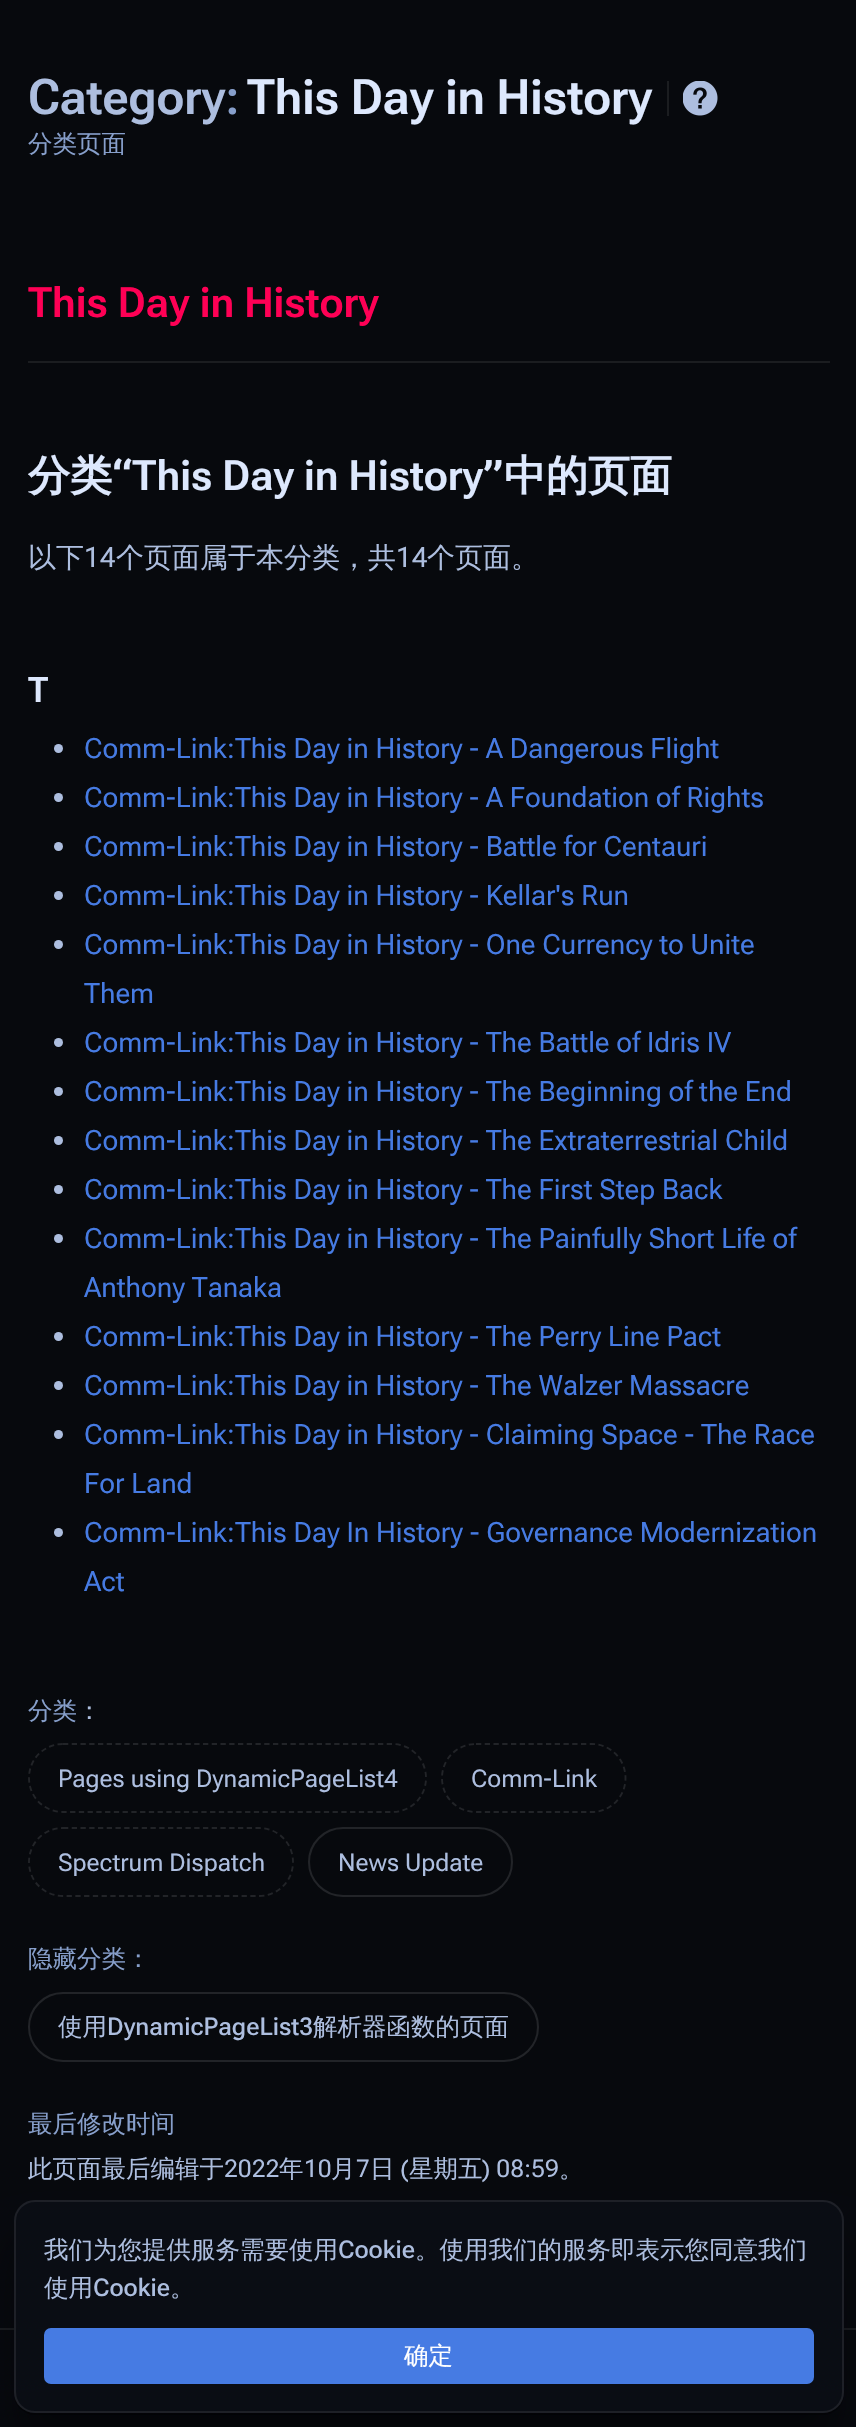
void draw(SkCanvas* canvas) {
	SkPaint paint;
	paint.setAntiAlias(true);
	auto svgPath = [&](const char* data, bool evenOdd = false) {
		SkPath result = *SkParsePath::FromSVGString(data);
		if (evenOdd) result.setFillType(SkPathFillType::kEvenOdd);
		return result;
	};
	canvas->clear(0xff07090d);
	SkFont f1(fontMgr->matchFamilyStyle("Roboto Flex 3", SkFontStyle(600, SkFontStyle::kNormal_Width, SkFontStyle::kUpright_Slant)), 49);
	f1.setSubpixel(true);
	paint.setColor(0xffadbedf);
	canvas->drawString("Category", 28, 114, f1, paint);
	paint.setColor(0xff879fcb);
	canvas->drawString(":", 225, 114, f1, paint);
	paint.setColor(0xffdde8fd);
	canvas->drawString("This Day in History", 247, 114, f1, paint);
	paint.setColor(0xff1b1d20);
	canvas->drawRect(SkRect::MakeXYWH(667, 81, 2, 35), paint);
	canvas->drawImageRect(SkImages::DeferredFromEncodedData(SkData::MakeFromFileName("img1.png")), SkRect::MakeXYWH(683, 81, 35, 35), SkSamplingOptions());
	SkFont f2(fontMgr->matchFamilyStyle("WenQuanYi Zen Hei", SkFontStyle(500, SkFontStyle::kNormal_Width, SkFontStyle::kUpright_Slant)), 24.5);
	f2.setSubpixel(true);
	paint.setColor(0xff879fcb);
	canvas->drawString("分类页面", 28, 152, f2, paint);
	SkFont f3(fontMgr->matchFamilyStyle("Roboto Flex", SkFontStyle(600, SkFontStyle::kNormal_Width, SkFontStyle::kUpright_Slant)), 42);
	f3.setSubpixel(true);
	paint.setColor(0xffff0055);
	canvas->drawString("This Day in History", 28, 317, f3, paint);
	paint.setColor(0xff1b1d20);
	canvas->drawRect(SkRect::MakeXYWH(28, 361, 802, 2), paint);
	SkFont f4(fontMgr->matchFamilyStyle("WenQuanYi Zen Hei", SkFontStyle::Bold()), 42);
	f4.setSubpixel(true);
	paint.setColor(0xffdde8fd);
	canvas->drawString("分类", 28, 490, f4, paint);
	canvas->drawString("“This Day in History”", 112, 490, f3, paint);
	canvas->drawString("中的页面", 504, 490, f4, paint);
	SkFont f5(fontMgr->matchFamilyStyle("WenQuanYi Zen Hei", SkFontStyle(500, SkFontStyle::kNormal_Width, SkFontStyle::kUpright_Slant)), 28);
	f5.setSubpixel(true);
	paint.setColor(0xffadbedf);
	canvas->drawString("以下", 28, 567, f5, paint);
	SkFont f6(fontMgr->matchFamilyStyle("Roboto Flex", SkFontStyle::Normal()), 28);
	f6.setSubpixel(true);
	canvas->drawString("14", 84, 567, f6, paint);
	canvas->drawString("个页面属于本分类，共", 116, 567, f5, paint);
	canvas->drawString("14", 396, 567, f6, paint);
	canvas->drawString("个页面。", 427, 567, f5, paint);
	SkFont f7(fontMgr->matchFamilyStyle("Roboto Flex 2", SkFontStyle(600, SkFontStyle::kNormal_Width, SkFontStyle::kUpright_Slant)), 35);
	f7.setSubpixel(true);
	paint.setColor(0xffdde8fd);
	canvas->drawString("T", 28, 702, f7, paint);
	paint.setColor(0xffadbedf);
	canvas->drawCircle(58.5, 748.5, 4.5, paint);
	SkFont f8(fontMgr->matchFamilyStyle("Roboto Flex 2", SkFontStyle::Normal()), 28);
	f8.setSubpixel(true);
	paint.setColor(0xff467be3);
	canvas->drawString("Comm-Link:This Day in History - A Dangerous Flight", 84, 758, f8, paint);
	paint.setColor(0xffadbedf);
	canvas->drawCircle(58.5, 797.5, 4.5, paint);
	paint.setColor(0xff467be3);
	canvas->drawString("Comm-Link:This Day in History - A Foundation of Rights", 84, 807, f8, paint);
	paint.setColor(0xffadbedf);
	canvas->drawCircle(58.5, 846.5, 4.5, paint);
	paint.setColor(0xff467be3);
	canvas->drawString("Comm-Link:This Day in History - Battle for Centauri", 84, 856, f8, paint);
	paint.setColor(0xffadbedf);
	canvas->drawCircle(58.5, 895.5, 4.5, paint);
	paint.setColor(0xff467be3);
	canvas->drawString("Comm-Link:This Day in History - Kellar's Run", 84, 905, f8, paint);
	paint.setColor(0xffadbedf);
	canvas->drawCircle(58.5, 944.5, 4.5, paint);
	paint.setColor(0xff467be3);
	canvas->drawString("Comm-Link:This Day in History - One Currency to Unite", 84, 954, f8, paint);
	canvas->drawString("Them", 84, 1003, f8, paint);
	paint.setColor(0xffadbedf);
	canvas->drawCircle(58.5, 1042.5, 4.5, paint);
	paint.setColor(0xff467be3);
	canvas->drawString("Comm-Link:This Day in History - The Battle of Idris IV", 84, 1052, f8, paint);
	paint.setColor(0xffadbedf);
	canvas->drawCircle(58.5, 1091.5, 4.5, paint);
	paint.setColor(0xff467be3);
	canvas->drawString("Comm-Link:This Day in History - The Beginning of the End", 84, 1101, f8, paint);
	paint.setColor(0xffadbedf);
	canvas->drawCircle(58.5, 1140.5, 4.5, paint);
	paint.setColor(0xff467be3);
	canvas->drawString("Comm-Link:This Day in History - The Extraterrestrial Child", 84, 1150, f8, paint);
	paint.setColor(0xffadbedf);
	canvas->drawCircle(58.5, 1189.5, 4.5, paint);
	paint.setColor(0xff467be3);
	canvas->drawString("Comm-Link:This Day in History - The First Step Back", 84, 1199, f8, paint);
	paint.setColor(0xffadbedf);
	canvas->drawCircle(58.5, 1238.5, 4.5, paint);
	paint.setColor(0xff467be3);
	canvas->drawString("Comm-Link:This Day in History - The Painfully Short Life of", 84, 1248, f8, paint);
	canvas->drawString("Anthony Tanaka", 84, 1297, f8, paint);
	paint.setColor(0xffadbedf);
	canvas->drawCircle(58.5, 1336.5, 4.5, paint);
	paint.setColor(0xff467be3);
	canvas->drawString("Comm-Link:This Day in History - The Perry Line Pact", 84, 1346, f8, paint);
	paint.setColor(0xffadbedf);
	canvas->drawCircle(58.5, 1385.5, 4.5, paint);
	paint.setColor(0xff467be3);
	canvas->drawString("Comm-Link:This Day in History - The Walzer Massacre", 84, 1395, f8, paint);
	paint.setColor(0xffadbedf);
	canvas->drawCircle(58.5, 1434.5, 4.5, paint);
	paint.setColor(0xff467be3);
	canvas->drawString("Comm-Link:This Day in History - Claiming Space - The Race", 84, 1444, f8, paint);
	canvas->drawString("For Land", 84, 1493, f8, paint);
	paint.setColor(0xffadbedf);
	canvas->drawCircle(58.5, 1532.5, 4.5, paint);
	paint.setColor(0xff467be3);
	canvas->drawString("Comm-Link:This Day In History - Governance Modernization", 84, 1542, f8, paint);
	canvas->drawString("Act", 84, 1591, f8, paint);
	paint.setColor(0xff879fcb);
	canvas->drawString("分类", 28, 1719, f2, paint);
	paint.setColor(0xffadbedf);
	canvas->drawString("：", 77, 1719, f2, paint);
	paint.setStroke(true);
	paint.setStrokeWidth(1.8);
	paint.setColor(0xff222428);
	paint.setPathEffect(SkDashPathEffect::Make({{5.25f, 3.5f}}, 0));
	canvas->drawPath(svgPath("M63 1744H392C411 1744 426 1759 426 1778C426 1797 411 1812 392 1812H63C44 1812 29 1797 29 1778C29 1759 44 1744 63 1744Z"), paint);
	paint.setPathEffect(nullptr);
	SkFont f9(fontMgr->matchFamilyStyle("Roboto Flex", SkFontStyle::Normal()), 24.5);
	f9.setSubpixel(true);
	paint.setStroke(false);
	paint.setColor(0xffadbedf);
	canvas->drawString("Pages using DynamicPageList4", 58, 1787, f9, paint);
	paint.setStroke(true);
	paint.setColor(0xff222428);
	paint.setPathEffect(SkDashPathEffect::Make({{5.25f, 3.5f}}, 0));
	canvas->drawPath(svgPath("M476 1744H591.5C610.5 1744 625.5 1759 625.5 1778C625.5 1797 610.5 1812 591.5 1812H476C457 1812 442 1797 442 1778C442 1759 457 1744 476 1744Z"), paint);
	paint.setPathEffect(nullptr);
	paint.setStroke(false);
	paint.setColor(0xffadbedf);
	canvas->drawString("Comm-Link", 471, 1787, f9, paint);
	paint.setStroke(true);
	paint.setColor(0xff222428);
	paint.setPathEffect(SkDashPathEffect::Make({{5.25f, 3.5f}}, 0));
	canvas->drawPath(svgPath("M63 1828H259C278 1828 293 1843 293 1862C293 1881 278 1896 259 1896H63C44 1896 29 1881 29 1862C29 1843 44 1828 63 1828Z"), paint);
	paint.setPathEffect(nullptr);
	paint.setStroke(false);
	paint.setColor(0xffadbedf);
	canvas->drawString("Spectrum Dispatch", 58, 1871, f9, paint);
	paint.setStroke(true);
	paint.setStrokeWidth(2);
	paint.setColor(0xff222428);
	canvas->drawRoundRect(SkRect::MakeXYWH(309, 1828, 203, 68), 34, 34, paint);
	paint.setStroke(false);
	paint.setColor(0xffadbedf);
	canvas->drawString("News Update", 338, 1871, f9, paint);
	paint.setColor(0xff879fcb);
	canvas->drawString("隐藏分类：", 28, 1967, f2, paint);
	paint.setStroke(true);
	paint.setColor(0xff222428);
	canvas->drawRoundRect(SkRect::MakeXYWH(29, 1993, 509, 68), 34, 34, paint);
	paint.setStroke(false);
	paint.setColor(0xffadbedf);
	canvas->drawString("使用", 58, 2035, f2, paint);
	SkFont f10(fontMgr->matchFamilyStyle("Roboto Flex", SkFontStyle(500, SkFontStyle::kNormal_Width, SkFontStyle::kUpright_Slant)), 24.5);
	f10.setSubpixel(true);
	canvas->drawString("DynamicPageList3", 107, 2035, f10, paint);
	canvas->drawString("解析器函数的页面", 313, 2035, f2, paint);
	paint.setColor(0xff879fcb);
	canvas->drawString("最后修改时间", 28, 2132, f2, paint);
	paint.setColor(0xffadbedf);
	canvas->drawString("此页面最后编辑于", 28, 2177, f2, paint);
	canvas->drawString("2022", 224, 2177, f9, paint);
	canvas->drawString("年", 279, 2177, f2, paint);
	canvas->drawString("10", 304, 2177, f9, paint);
	canvas->drawString("月", 331, 2177, f2, paint);
	canvas->drawString("7", 356, 2177, f9, paint);
	canvas->drawString("日", 370, 2177, f2, paint);
	canvas->drawString("(", 400, 2177, f9, paint);
	canvas->drawString("星期五", 409, 2177, f2, paint);
	canvas->drawString(") 08:59", 482, 2177, f9, paint);
	canvas->drawString("。", 559, 2177, f2, paint);
	paint.setColor(0xff1b1d20);
	canvas->drawRect(SkRect::MakeXYWH(0, 2328, 856, 2), paint);
	paint.setColor(0x70000102);
	paint.setMaskFilter(SkMaskFilter::MakeBlur(kNormal_SkBlurStyle, 21.5));
	canvas->drawRoundRect(SkRect::MakeXYWH(18, 2242, 822, 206), 18, 18, paint);
	paint.setMaskFilter(nullptr);
	paint.setMaskFilter(SkMaskFilter::MakeBlur(kNormal_SkBlurStyle, 0.5));
	canvas->drawRoundRect(SkRect::MakeXYWH(14, 2202, 830, 213), 21, 21, paint);
	paint.setMaskFilter(nullptr);
	paint.setColor(0xff0a0d14);
	canvas->drawRoundRect(SkRect::MakeXYWH(14, 2200, 830, 213), 21, 21, paint);
	paint.setStroke(true);
	paint.setColor(0x14ffffff);
	canvas->drawRoundRect(SkRect::MakeXYWH(15, 2201, 828, 211), 20, 20, paint);
	paint.setStroke(false);
	paint.setColor(0xffadbedf);
	canvas->drawString("我们为您提供服务需要使用", 44, 2258, f2, paint);
	canvas->drawString("Cookie", 338, 2258, f10, paint);
	canvas->drawString("。使用我们的服务即表示您同意我们", 415, 2258, f2, paint);
	canvas->drawString("使用", 44, 2296, f2, paint);
	canvas->drawString("Cookie", 93, 2296, f10, paint);
	canvas->drawString("。", 170, 2296, f2, paint);
	paint.setColor(0xff467be3);
	canvas->drawRoundRect(SkRect::MakeXYWH(45, 2329, 768, 54), 6, 6, paint);
	paint.setStroke(true);
	canvas->drawRoundRect(SkRect::MakeXYWH(45, 2329, 768, 54), 6, 6, paint);
	paint.setStroke(false);
	paint.setColor(0xffffffff);
	canvas->drawString("确定", 404, 2364, f2, paint);
}
